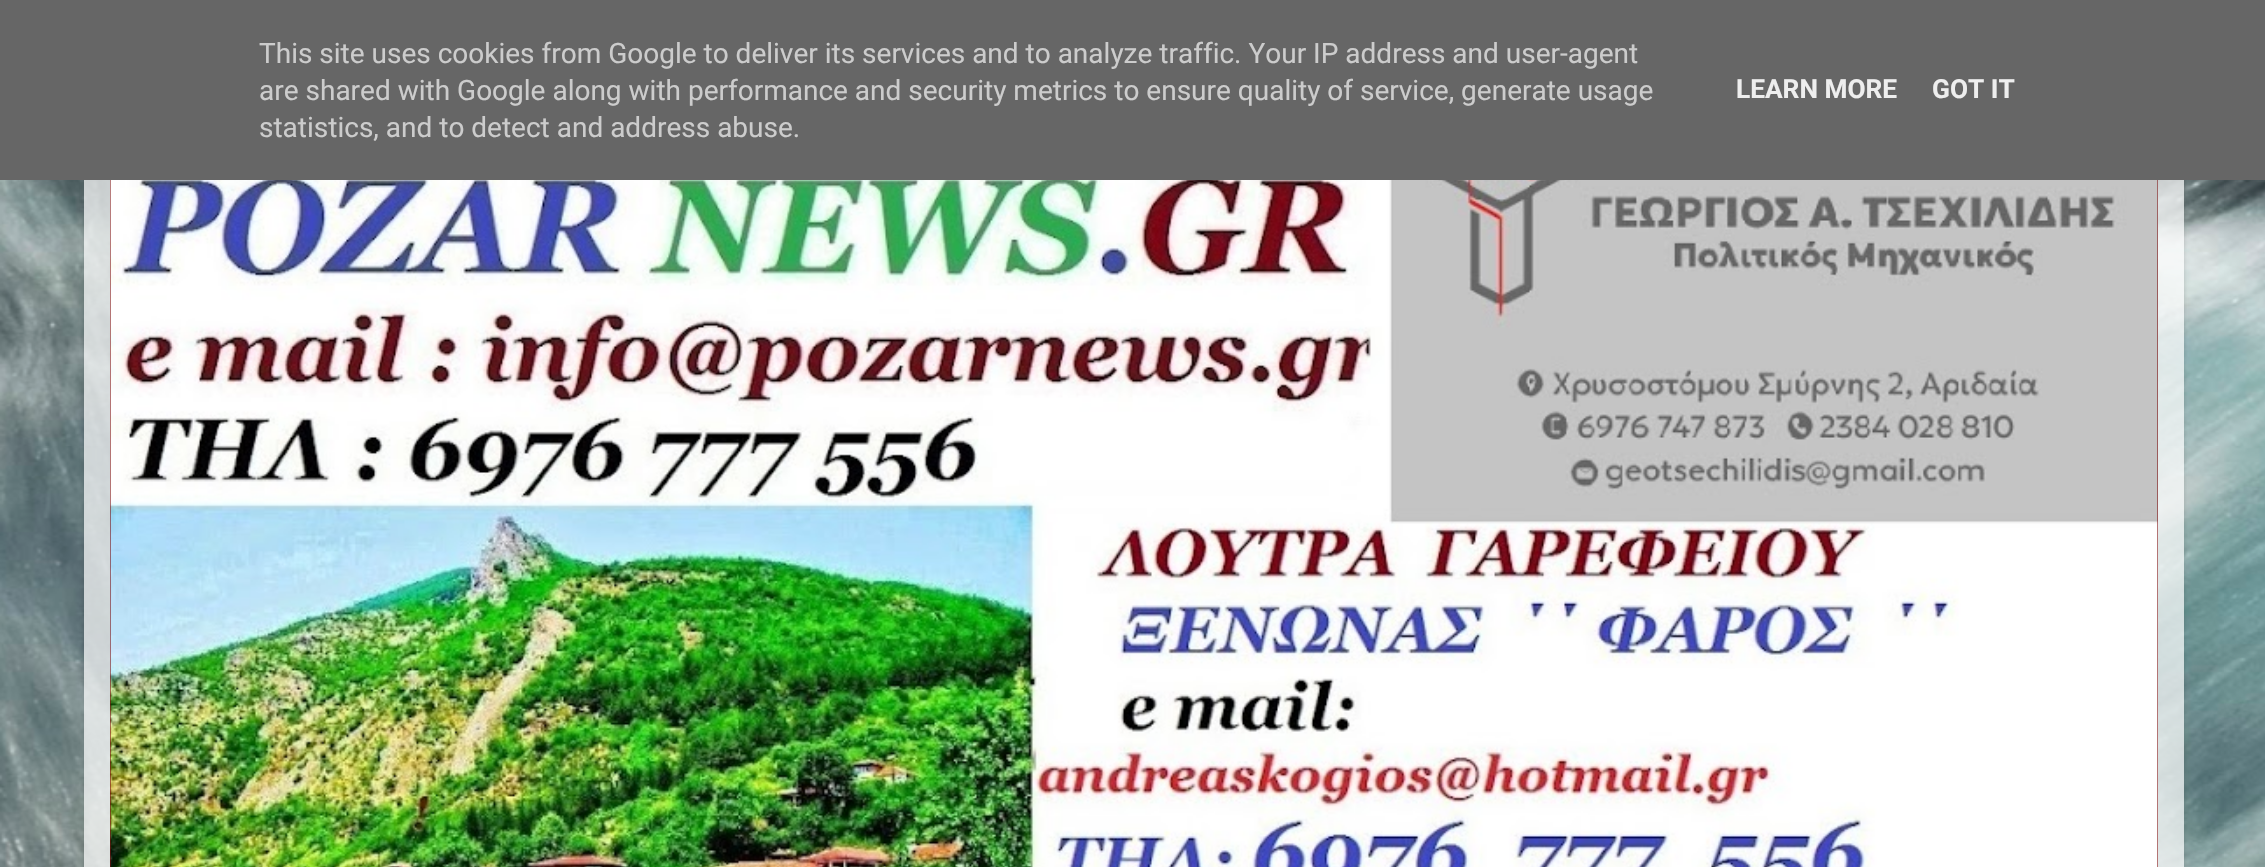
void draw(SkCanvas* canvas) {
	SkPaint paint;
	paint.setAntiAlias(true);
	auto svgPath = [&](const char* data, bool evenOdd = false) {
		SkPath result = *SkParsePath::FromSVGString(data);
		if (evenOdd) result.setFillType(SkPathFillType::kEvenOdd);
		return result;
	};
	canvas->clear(0xffffffff);
	canvas->drawImageRect(SkImages::DeferredFromEncodedData(SkData::MakeFromFileName("img1.png")), SkRect::MakeXYWH(0, 180, 2265, 687), SkSamplingOptions());
	canvas->save();
	canvas->clipPath(svgPath("M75 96H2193V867H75ZM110 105H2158C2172.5 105 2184 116.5 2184 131V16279C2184 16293.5 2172.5 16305 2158 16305H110C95.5 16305 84 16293.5 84 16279V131C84 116.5 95.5 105 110 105Z", true), true);
	paint.setColor(0x26000000);
	paint.setMaskFilter(SkMaskFilter::MakeBlur(kNormal_SkBlurStyle, 2.5));
	canvas->drawRoundRect(SkRect::MakeXYWH(84, 105, 2100, 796), 26, 26, paint);
	paint.setMaskFilter(nullptr);
	canvas->restore();
	paint.setColor(0xff666666);
	canvas->drawRect(SkRect::MakeXYWH(0, 0, 2265, 180), paint);
	SkFont f1(fontMgr->matchFamilyStyle("Roboto", SkFontStyle::Normal()), 28);
	f1.setSubpixel(true);
	paint.setColor(0xffcccccc);
	canvas->drawString("This site uses cookies from Google to deliver its services and to analyze traffic. Your IP address and user-agent", 259, 63, f1, paint);
	canvas->drawString("are shared with Google along with performance and security metrics to ensure quality of service, generate usage", 259, 100, f1, paint);
	canvas->drawString("statistics, and to detect and address abuse.", 259, 137, f1, paint);
	SkFont f2(fontMgr->matchFamilyStyle("Roboto", SkFontStyle::Bold()), 26.25);
	f2.setSubpixel(true);
	paint.setColor(0xffeeeeee);
	canvas->drawString("LEARN MORE", 1736, 98, f2, paint);
	canvas->drawString("GOT IT", 1932, 98, f2, paint);
	canvas->drawImageRect(SkImages::DeferredFromEncodedData(SkData::MakeFromFileName("img2.png")), SkRect::MakeXYWH(84, 180, 2100, 687), SkSamplingOptions());
	paint.setColor(0xff7c0d0d);
	canvas->drawRect(SkRect::MakeXYWH(110, 180, 2048, 687), paint);
	canvas->drawImageRect(SkImages::DeferredFromEncodedData(SkData::MakeFromFileName("img3.png")), SkRect::MakeXYWH(110, 180, 2048, 79), SkSamplingOptions());
	canvas->drawImageRect(SkImages::DeferredFromEncodedData(SkData::MakeFromFileName("img4.png")), SkRect::MakeXYWH(110, 180, 2048, 687), SkSamplingOptions());
}
